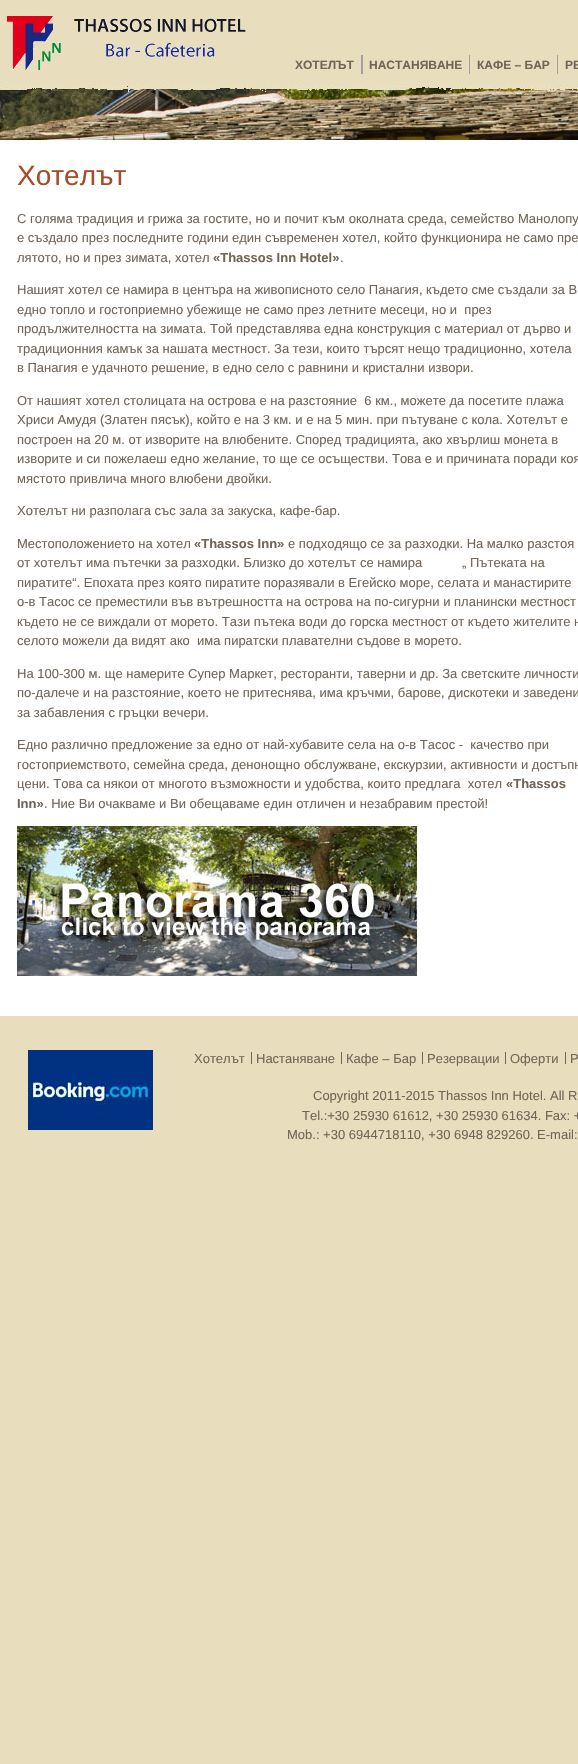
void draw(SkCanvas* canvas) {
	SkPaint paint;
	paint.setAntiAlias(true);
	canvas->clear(0xffe8debe);
	canvas->drawImageRect(SkImages::DeferredFromEncodedData(SkData::MakeFromFileName("img1.png")), SkRect::MakeXYWH(7, 16, 239, 54), SkSamplingOptions());
	SkFont f1(fontMgr->matchFamilyStyle("Liberation Sans", SkFontStyle::Bold()), 12);
	f1.setSubpixel(true);
	paint.setColor(0xff716558);
	canvas->drawString("ХОТЕЛЪТ", 295, 69, f1, paint);
	paint.setColor(0xffa1a1a1);
	canvas->drawRect(SkRect::MakeXYWH(361, 55, 2, 19), paint);
	paint.setColor(0xff716558);
	canvas->drawString("НАСТАНЯВАНЕ", 369, 69, f1, paint);
	paint.setColor(0xffa1a1a1);
	canvas->drawRect(SkRect::MakeXYWH(469, 55, 1, 19), paint);
	paint.setColor(0xff716558);
	canvas->drawString("КАФЕ – БАР", 477, 69, f1, paint);
	paint.setColor(0xffa1a1a1);
	canvas->drawRect(SkRect::MakeXYWH(557, 55, 1, 19), paint);
	paint.setColor(0xff716558);
	canvas->drawString("РЕ", 565, 69, f1, paint);
	canvas->drawImageRect(SkImages::DeferredFromEncodedData(SkData::MakeFromFileName("img2.png")), SkRect::MakeXYWH(0, 85, 578, 55), SkSamplingOptions());
	paint.setColor(0xffffffff);
	canvas->drawRect(SkRect::MakeXYWH(0, 140, 578, 7), paint);
	canvas->drawRect(SkRect::MakeXYWH(0, 147, 578, 869), paint);
	SkFont f2(fontMgr->matchFamilyStyle("Liberation Sans", SkFontStyle::Normal()), 28);
	f2.setSubpixel(true);
	paint.setColor(0xffa74c28);
	canvas->drawString("Хотелът", 17, 185, f2, paint);
	SkFont f3(fontMgr->matchFamilyStyle("Liberation Sans", SkFontStyle::Normal()), 13);
	f3.setSubpixel(true);
	paint.setColor(0xff716558);
	canvas->drawString("С голяма традиция и грижа за гостите, но и почит към околната среда, семейство Манолопу", 17, 223, f3, paint);
	canvas->drawString("е създало през последните години един съвременен хотел, който функционира не само пре", 17, 242, f3, paint);
	canvas->drawString("лятото, но и през зимата, хотел", 17, 262, f3, paint);
	SkFont f4(fontMgr->matchFamilyStyle("Liberation Sans", SkFontStyle::Bold()), 13);
	f4.setSubpixel(true);
	canvas->drawString("«Thassos Inn Hotel»", 213, 262, f4, paint);
	canvas->drawString(".", 340, 262, f3, paint);
	canvas->drawString("Нашият хотел се намира в центъра на живописното село Панагия, където сме създали за В", 17, 294, f3, paint);
	canvas->drawString("едно топло и гостоприемно убежище не само през летните месеци, но и  през", 17, 314, f3, paint);
	canvas->drawString("продължителността на зимата. Той представлява една конструкция с материал от дърво и", 17, 333, f3, paint);
	canvas->drawString("традиционния камък за нашата местност. За тези, които търсят нещо традиционно, хотела", 17, 353, f3, paint);
	canvas->drawString("в Панагия е удачното решение, в едно село с равнини и кристални извори.", 17, 372, f3, paint);
	canvas->drawString("От нашият хотел столицата на острова е на разстояние  6 км., можете да посетите плажа", 17, 405, f3, paint);
	canvas->drawString("Хриси Амудя (Златен пясък), който е на 3 км. и е на 5 мин. при пътуване с кола. Хотелът е", 17, 424, f3, paint);
	canvas->drawString("построен на 20 м. от изворите на влюбените. Според традицията, ако хвърлиш монета в", 17, 444, f3, paint);
	canvas->drawString("изворите и си пожелаеш едно желание, то ще се осъществи. Това е и причината поради коя", 17, 463, f3, paint);
	canvas->drawString("мястото привлича много влюбени двойки.", 17, 483, f3, paint);
	canvas->drawString("Хотелът ни разполага със зала за закуска, кафе-бар.", 17, 515, f3, paint);
	canvas->drawString("Местоположението на хотел", 17, 548, f3, paint);
	canvas->drawString("«Thassos Inn»", 194, 548, f4, paint);
	canvas->drawString("е подходящо се за разходки. На малко разстоя", 288, 548, f3, paint);
	canvas->drawString("от хотелът има пътечки за разходки. Близко до хотелът се намира           „ Пътеката на", 17, 567, f3, paint);
	canvas->drawString("пиратите“. Епохата през която пиратите поразявали в Егейско море, селата и манастирите", 17, 587, f3, paint);
	canvas->drawString("о-в Тасос се преместили във вътрешността на острова на по-сигурни и планински местност", 17, 606, f3, paint);
	canvas->drawString("където не се виждали от морето. Тази пътека води до горска местност от където жителите н", 17, 626, f3, paint);
	canvas->drawString("селото можели да видят ако  има пиратски плавателни съдове в морето.", 17, 645, f3, paint);
	canvas->drawString("На 100-300 м. ще намерите Супер Маркет, ресторанти, таверни и др. За светските личности", 17, 678, f3, paint);
	canvas->drawString("по-далече и на разстояние, което не притеснява, има кръчми, барове, дискотеки и заведени", 17, 697, f3, paint);
	canvas->drawString("за забавления с гръцки вечери.", 17, 717, f3, paint);
	canvas->drawString("Едно различно предложение за едно от най-хубавите села на о-в Тасос -  качество при", 17, 749, f3, paint);
	canvas->drawString("гостоприемството, семейна среда, денонощно обслужване, екскурзии, активности и достъпн", 17, 769, f3, paint);
	canvas->drawString("цени. Това са някои от многото възможности и удобства, които предлага  хотел", 17, 788, f3, paint);
	canvas->drawString("«Thassos", 506, 788, f4, paint);
	canvas->drawString("Inn»", 17, 808, f4, paint);
	canvas->drawString(". Ние Ви очакваме и Ви обещаваме един отличен и незабравим престой!", 44, 808, f3, paint);
	canvas->drawImageRect(SkImages::DeferredFromEncodedData(SkData::MakeFromFileName("img3.png")), SkRect::MakeXYWH(17, 826, 400, 150), SkSamplingOptions());
	canvas->drawImageRect(SkImages::DeferredFromEncodedData(SkData::MakeFromFileName("img4.png")), SkRect::MakeXYWH(28, 1050, 125, 80), SkSamplingOptions());
	canvas->drawString("Хотелът", 194, 1063, f3, paint);
	canvas->drawRect(SkRect::MakeXYWH(251, 1052, 1, 12), paint);
	canvas->drawString("Настаняване", 256, 1063, f3, paint);
	canvas->drawRect(SkRect::MakeXYWH(341, 1052, 1, 12), paint);
	canvas->drawString("Кафе – Бар", 346, 1063, f3, paint);
	canvas->drawRect(SkRect::MakeXYWH(422, 1052, 1, 12), paint);
	canvas->drawString("Резервации", 427, 1063, f3, paint);
	canvas->drawRect(SkRect::MakeXYWH(505, 1052, 1, 12), paint);
	canvas->drawString("Оферти", 510, 1063, f3, paint);
	canvas->drawRect(SkRect::MakeXYWH(565, 1052, 1, 12), paint);
	canvas->drawString("P", 570, 1063, f3, paint);
	canvas->drawString("Copyright 2011-2015 Thassos Inn Hotel. All R", 313, 1100, f3, paint);
	canvas->drawString("Tel.:+30 25930 61612, +30 25930 61634. Fax: +", 302, 1120, f3, paint);
	canvas->drawString("Mob.: +30 6944718110, +30 6948 829260. E-mail:", 287, 1139, f3, paint);
}
